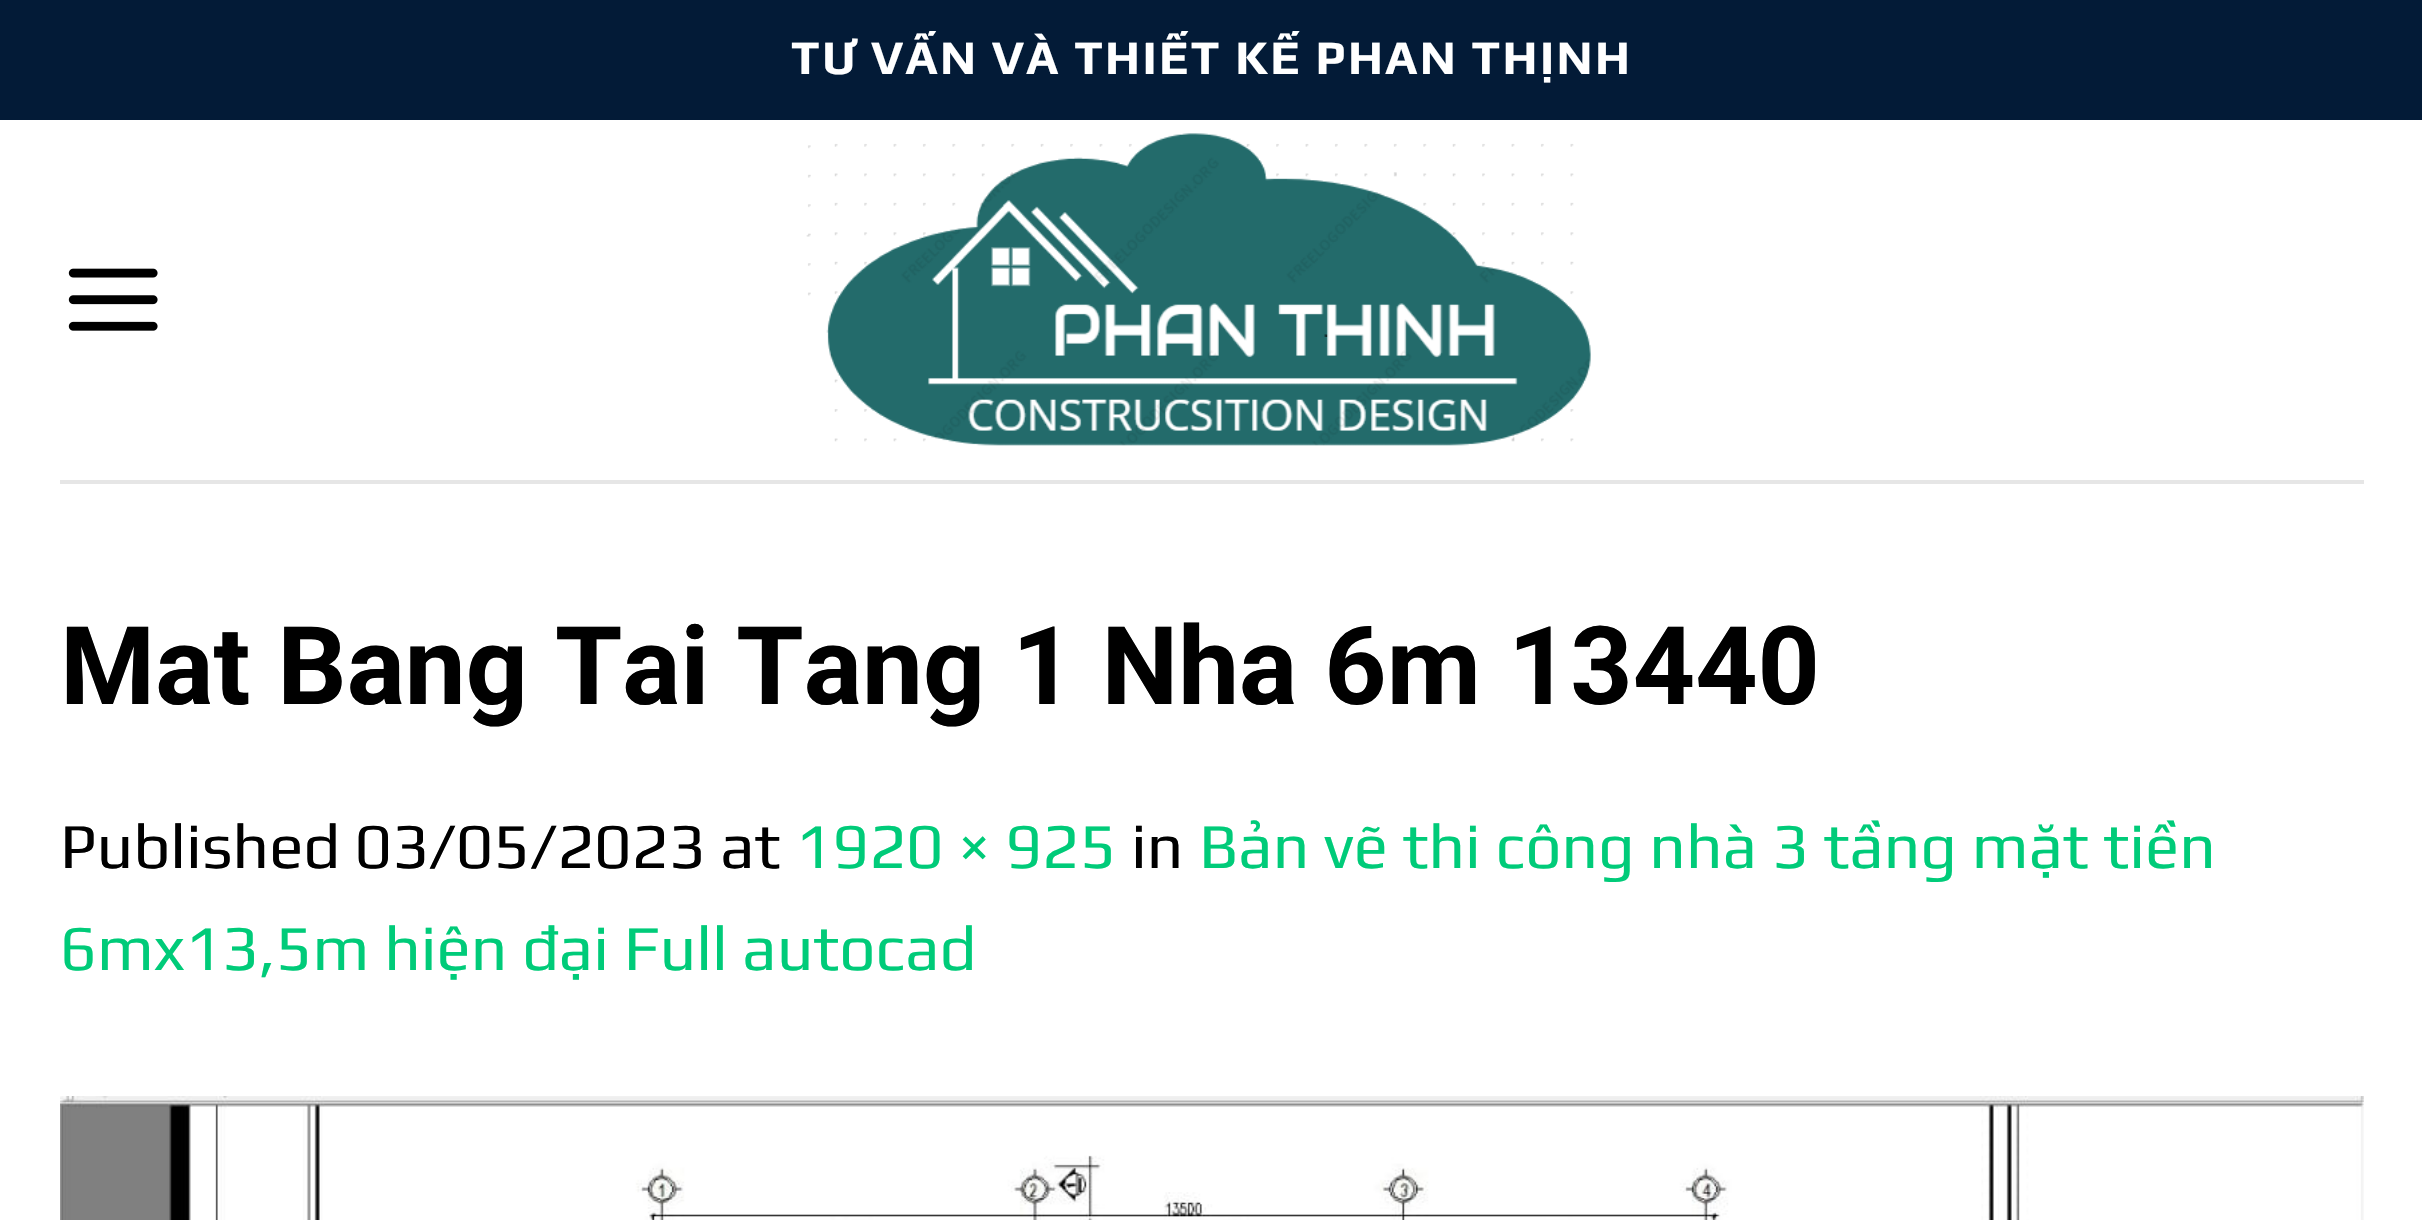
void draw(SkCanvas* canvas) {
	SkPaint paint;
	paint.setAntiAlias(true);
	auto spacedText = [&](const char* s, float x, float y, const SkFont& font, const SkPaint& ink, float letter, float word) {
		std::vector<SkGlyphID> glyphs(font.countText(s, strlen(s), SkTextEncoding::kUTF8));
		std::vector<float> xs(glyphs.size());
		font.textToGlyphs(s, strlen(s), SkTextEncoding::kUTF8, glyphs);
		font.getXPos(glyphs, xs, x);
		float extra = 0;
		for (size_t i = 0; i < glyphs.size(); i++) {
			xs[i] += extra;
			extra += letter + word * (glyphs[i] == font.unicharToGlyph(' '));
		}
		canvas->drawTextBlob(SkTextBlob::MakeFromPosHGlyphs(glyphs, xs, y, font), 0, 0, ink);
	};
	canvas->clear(0xffffffff);
	paint.setColor(0xff031b37);
	canvas->drawRect(SkRect::MakeXYWH(0, 0, 2422, 120), paint);
	SkFont f1(fontMgr->matchFamilyStyle("Play", SkFontStyle::Bold()), 48);
	f1.setSubpixel(true);
	paint.setColor(0xffffffff);
	spacedText("TƯ VẤN VÀ THIẾT KẾ PHAN THỊNH", 791, 74, f1, paint, 2.4, 0);
	canvas->drawImageRect(SkImages::DeferredFromEncodedData(SkData::MakeFromFileName("img1.png")), SkRect::MakeXYWH(68, 268, 90, 63), SkSamplingOptions());
	canvas->drawImageRect(SkImages::DeferredFromEncodedData(SkData::MakeFromFileName("img2.png")), SkRect::MakeXYWH(806, 133, 785, 313), SkSamplingOptions());
	paint.setColor(0xffe6e6e6);
	canvas->drawRect(SkRect::MakeXYWH(60, 480, 2304, 4), paint);
	SkFont f2(fontMgr->matchFamilyStyle("Roboto", SkFontStyle::Bold()), 108.75);
	f2.setSubpixel(true);
	paint.setColor(0xff000000);
	canvas->drawString("Mat Bang Tai Tang 1 Nha 6m 13440", 60, 704, f2, paint);
	SkFont f3(fontMgr->matchFamilyStyle("Play", SkFontStyle::Normal()), 64);
	f3.setSubpixel(true);
	canvas->drawString("Published 03/05/2023 at", 60, 868, f3, paint);
	paint.setColor(0xff00cb79);
	canvas->drawString("1920 × 925", 795, 868, f3, paint);
	paint.setColor(0xff000000);
	canvas->drawString("in", 1131, 868, f3, paint);
	paint.setColor(0xff00cb79);
	canvas->drawString("Bản vẽ thi công nhà 3 tầng mặt tiền", 1199, 868, f3, paint);
	canvas->drawString("6mx13,5m hiện đại Full autocad", 60, 970, f3, paint);
	canvas->drawImageRect(SkImages::DeferredFromEncodedData(SkData::MakeFromFileName("img3.png")), SkRect::MakeXYWH(60, 1096, 2304, 124), SkSamplingOptions());
}
